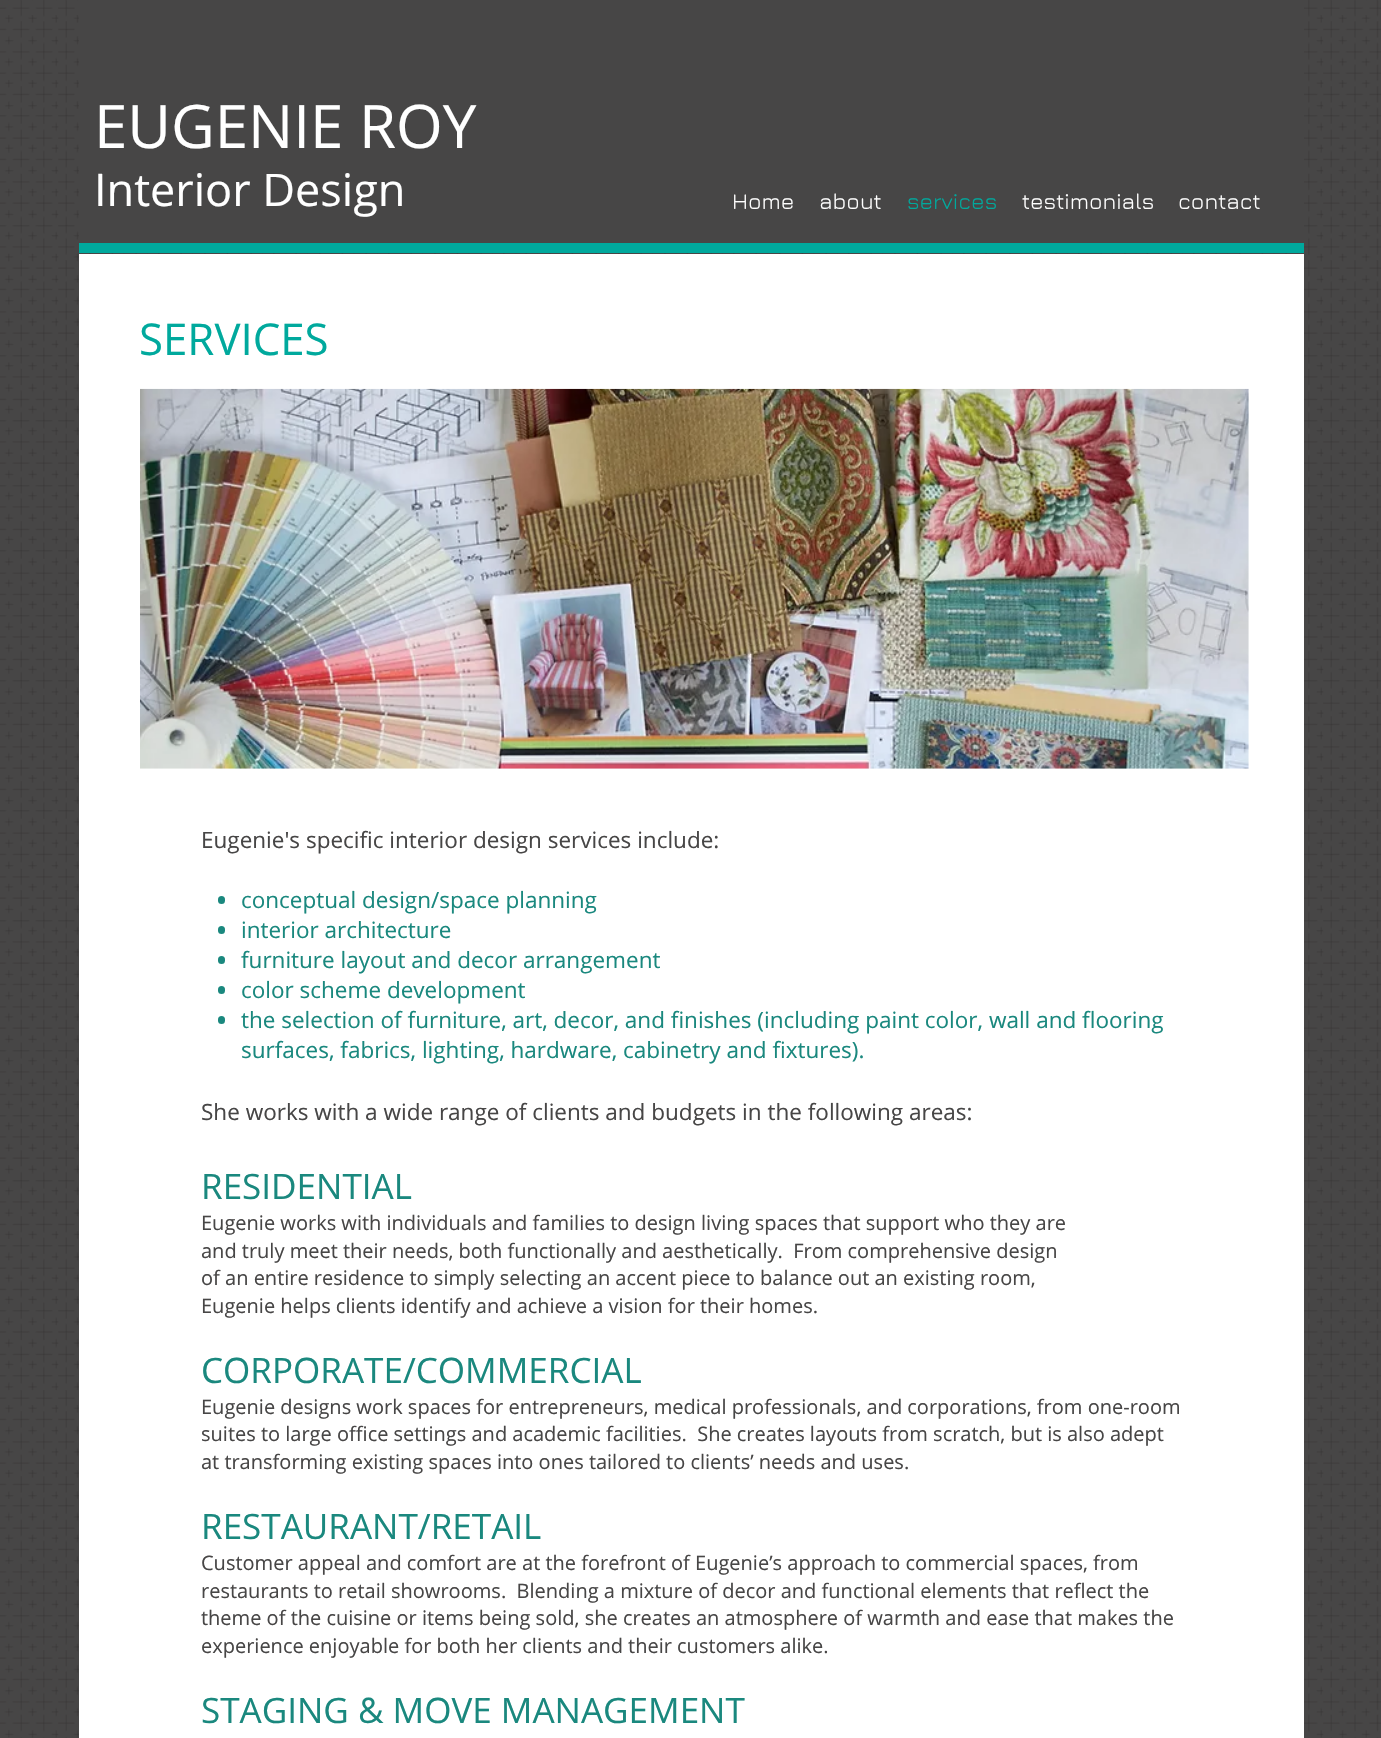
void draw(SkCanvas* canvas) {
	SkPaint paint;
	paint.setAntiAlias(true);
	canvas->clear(0xff474646);
	canvas->drawImageRect(SkImages::DeferredFromEncodedData(SkData::MakeFromFileName("img1.png")), SkRect::MakeXYWH(0, 0, 1381, 1738), SkSamplingOptions());
	paint.setColor(0xff474646);
	canvas->drawRect(SkRect::MakeXYWH(79, 0, 1225, 243), paint);
	SkFont f1(fontMgr->matchFamilyStyle("Open Sans", SkFontStyle::Normal()), 60);
	f1.setSubpixel(true);
	paint.setColor(0xffffffff);
	canvas->drawString("EUGENIE ROY", 94, 148, f1, paint);
	SkFont f2(fontMgr->matchFamilyStyle("Open Sans", SkFontStyle::Normal()), 45);
	f2.setSubpixel(true);
	canvas->drawString("Interior Design", 94, 206, f2, paint);
	SkFont f3(fontMgr->matchFamilyStyle("Jura", SkFontStyle::Normal()), 22.5);
	f3.setSubpixel(true);
	canvas->drawString("Home", 732, 209, f3, paint);
	canvas->drawString("about", 819, 209, f3, paint);
	paint.setColor(0xff00a99d);
	canvas->drawString("services", 907, 209, f3, paint);
	paint.setColor(0xffffffff);
	canvas->drawString("testimonials", 1022, 209, f3, paint);
	canvas->drawString("contact", 1178, 209, f3, paint);
	paint.setColor(0xff00a99d);
	canvas->drawRect(SkRect::MakeXYWH(79, 243, 1225, 10), paint);
	paint.setColor(0xffffffff);
	canvas->drawRect(SkRect::MakeXYWH(79, 254, 1225, 1484), paint);
	SkFont f4(fontMgr->matchFamilyStyle("Open Sans", SkFontStyle::Normal()), 43.75);
	f4.setSubpixel(true);
	paint.setColor(0xff00a99d);
	canvas->drawString("SERVICES", 139, 355, f4, paint);
	canvas->drawImageRect(SkImages::DeferredFromEncodedData(SkData::MakeFromFileName("img2.png")), SkRect::MakeXYWH(140, 388, 1109, 381), SkSamplingOptions());
	SkFont f5(fontMgr->matchFamilyStyle("Open Sans", SkFontStyle::Normal()), 22.5);
	f5.setSubpixel(true);
	paint.setColor(0xff474646);
	canvas->drawString("Eugenie's specific interior design services include:", 201, 848, f5, paint);
	paint.setColor(0xff1a887e);
	canvas->drawRoundRect(SkRect::MakeXYWH(218, 896, 7, 8), 3.5, 3.5, paint);
	canvas->drawString("conceptual design/space planning", 241, 908, f5, paint);
	canvas->drawRoundRect(SkRect::MakeXYWH(218, 926, 7, 8), 3.5, 3.5, paint);
	canvas->drawString("interior architecture", 241, 938, f5, paint);
	canvas->drawRoundRect(SkRect::MakeXYWH(218, 956, 7, 8), 3.5, 3.5, paint);
	canvas->drawString("furniture layout and decor arrangement", 241, 968, f5, paint);
	canvas->drawRoundRect(SkRect::MakeXYWH(218, 986, 7, 8), 3.5, 3.5, paint);
	canvas->drawString("color scheme development", 241, 998, f5, paint);
	canvas->drawRoundRect(SkRect::MakeXYWH(218, 1016, 7, 8), 3.5, 3.5, paint);
	canvas->drawString("the selection of furniture, art, decor, and finishes (including paint color, wall and flooring", 241, 1028, f5, paint);
	canvas->drawString("surfaces, fabrics, lighting, hardware, cabinetry and fixtures).", 241, 1058, f5, paint);
	paint.setColor(0xff474646);
	canvas->drawString("She works with a wide range of clients and budgets in the following areas:", 201, 1120, f5, paint);
	SkFont f6(fontMgr->matchFamilyStyle("Open Sans", SkFontStyle::Normal()), 35);
	f6.setSubpixel(true);
	paint.setColor(0xff1a887e);
	canvas->drawString("RESIDENTIAL", 201, 1199, f6, paint);
	SkFont f7(fontMgr->matchFamilyStyle("Open Sans", SkFontStyle::Normal()), 20);
	f7.setSubpixel(true);
	paint.setColor(0xff474646);
	canvas->drawString("Eugenie works with individuals and families to design living spaces that support who they are", 201, 1230, f7, paint);
	canvas->drawString("and truly meet their needs, both functionally and aesthetically.  From comprehensive design", 201, 1258, f7, paint);
	canvas->drawString("of an entire residence to simply selecting an accent piece to balance out an existing room,", 201, 1285, f7, paint);
	canvas->drawString("Eugenie helps clients identify and achieve a vision for their homes.", 201, 1313, f7, paint);
	paint.setColor(0xff1a887e);
	canvas->drawString("CORPORATE/COMMERCIAL", 201, 1383, f6, paint);
	paint.setColor(0xff474646);
	canvas->drawString("Eugenie designs work spaces for entrepreneurs, medical professionals, and corporations, from one-room", 201, 1414, f7, paint);
	canvas->drawString("suites to large office settings and academic facilities.  She creates layouts from scratch, but is also adept", 201, 1441, f7, paint);
	canvas->drawString("at transforming existing spaces into ones tailored to clients’ needs and uses.", 201, 1469, f7, paint);
	paint.setColor(0xff1a887e);
	canvas->drawString("RESTAURANT/RETAIL", 201, 1539, f6, paint);
	paint.setColor(0xff474646);
	canvas->drawString("Customer appeal and comfort are at the forefront of Eugenie’s approach to commercial spaces, from", 201, 1570, f7, paint);
	canvas->drawString("restaurants to retail showrooms.  Blending a mixture of decor and functional elements that reflect the", 201, 1598, f7, paint);
	canvas->drawString("theme of the cuisine or items being sold, she creates an atmosphere of warmth and ease that makes the", 201, 1625, f7, paint);
	canvas->drawString("experience enjoyable for both her clients and their customers alike.", 201, 1653, f7, paint);
	paint.setColor(0xff1a887e);
	canvas->drawString("STAGING & MOVE MANAGEMENT", 201, 1723, f6, paint);
}
